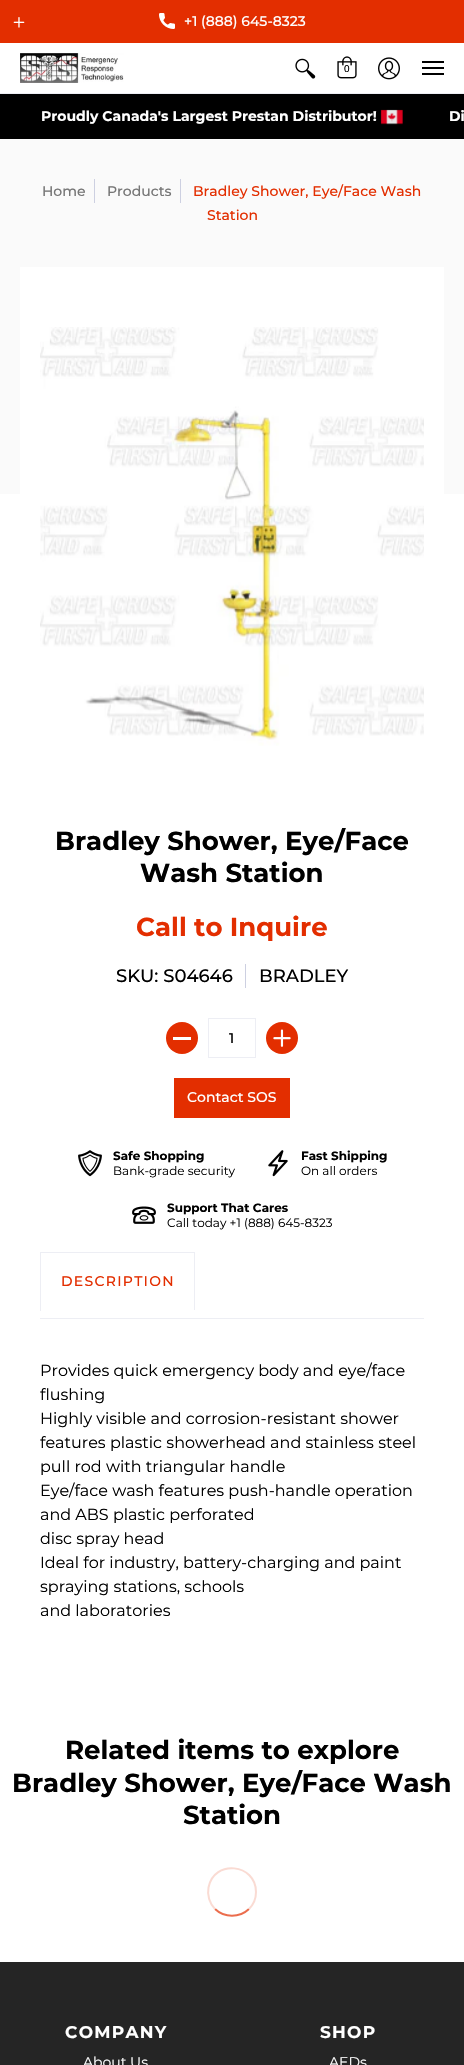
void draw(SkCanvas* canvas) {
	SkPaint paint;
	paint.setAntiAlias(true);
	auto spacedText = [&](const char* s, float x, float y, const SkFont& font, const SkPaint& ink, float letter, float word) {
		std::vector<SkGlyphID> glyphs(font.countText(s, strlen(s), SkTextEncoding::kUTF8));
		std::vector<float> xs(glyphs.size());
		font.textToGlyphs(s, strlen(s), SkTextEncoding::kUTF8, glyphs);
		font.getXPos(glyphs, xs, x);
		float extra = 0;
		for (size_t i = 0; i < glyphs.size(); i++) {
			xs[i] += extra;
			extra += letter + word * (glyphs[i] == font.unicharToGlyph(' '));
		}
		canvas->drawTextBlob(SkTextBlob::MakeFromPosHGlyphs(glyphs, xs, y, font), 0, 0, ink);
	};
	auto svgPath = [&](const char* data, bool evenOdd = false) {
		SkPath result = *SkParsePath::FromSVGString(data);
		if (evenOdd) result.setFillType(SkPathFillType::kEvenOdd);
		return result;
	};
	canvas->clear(0xffffffff);
	paint.setColor(0xffe32e00);
	canvas->drawRect(SkRect::MakeXYWH(0, 0, 464, 43), paint);
	canvas->drawImageRect(SkImages::DeferredFromEncodedData(SkData::MakeFromFileName("img1.png")), SkRect::MakeXYWH(13, 17, 12, 11), SkSamplingOptions());
	canvas->drawImageRect(SkImages::DeferredFromEncodedData(SkData::MakeFromFileName("img2.png")), SkRect::MakeXYWH(159, 13, 16, 16), SkSamplingOptions());
	SkFont f1(fontMgr->matchFamilyStyle("Montserrat", SkFontStyle(500, SkFontStyle::kNormal_Width, SkFontStyle::kUpright_Slant)), 14);
	f1.setSubpixel(true);
	paint.setColor(0xffffffff);
	canvas->drawString("+1 (888) 645-8323", 184, 26, f1, paint);
	paint.setColor(0xffedeef4);
	canvas->drawRect(SkRect::MakeXYWH(0, 93, 464, 1), paint);
	canvas->drawImageRect(SkImages::DeferredFromEncodedData(SkData::MakeFromFileName("img3.png")), SkRect::MakeXYWH(20, 53, 104, 30), SkSamplingOptions());
	canvas->drawImageRect(SkImages::DeferredFromEncodedData(SkData::MakeFromFileName("img4.png")), SkRect::MakeXYWH(295, 58, 21, 21), SkSamplingOptions());
	canvas->drawImageRect(SkImages::DeferredFromEncodedData(SkData::MakeFromFileName("img5.png")), SkRect::MakeXYWH(337, 56, 20, 23), SkSamplingOptions());
	SkFont f2(fontMgr->matchFamilyStyle("Liberation Sans", SkFontStyle::Normal()), 10);
	f2.setSubpixel(true);
	paint.setColor(0xff000000);
	canvas->drawString("0", 344, 72, f2, paint);
	canvas->drawImageRect(SkImages::DeferredFromEncodedData(SkData::MakeFromFileName("img6.png")), SkRect::MakeXYWH(378, 57, 22, 23), SkSamplingOptions());
	canvas->drawRect(SkRect::MakeXYWH(422, 61, 22, 2), paint);
	canvas->drawRect(SkRect::MakeXYWH(422, 73, 22, 2), paint);
	canvas->drawRect(SkRect::MakeXYWH(422, 67, 22, 2), paint);
	canvas->drawRect(SkRect::MakeXYWH(0, 94, 464, 45), paint);
	SkFont f3(fontMgr->matchFamilyStyle("Montserrat", SkFontStyle::Bold()), 14);
	f3.setSubpixel(true);
	paint.setColor(0xffffffff);
	canvas->drawString("Proudly Canada's Largest Prestan Distributor!", 41, 121, f3, paint);
	canvas->drawImageRect(SkImages::DeferredFromEncodedData(SkData::MakeFromFileName("img7.png")), SkRect::MakeXYWH(380, 109, 23, 16), SkSamplingOptions());
	canvas->drawString("Di", 449, 121, f3, paint);
	paint.setColor(0xfffafafa);
	canvas->drawRect(SkRect::MakeXYWH(0, 139, 464, 355), paint);
	paint.setColor(0xff767676);
	canvas->drawString("Home", 42, 196, f1, paint);
	paint.setColor(0xffcdd0e1);
	canvas->drawRect(SkRect::MakeXYWH(94, 179, 1, 24), paint);
	paint.setColor(0xff767676);
	canvas->drawString("Products", 107, 196, f1, paint);
	paint.setColor(0xffcdd0e1);
	canvas->drawRect(SkRect::MakeXYWH(180, 179, 1, 24), paint);
	paint.setColor(0xffe32e00);
	canvas->drawString("Bradley Shower, Eye/Face Wash", 193, 196, f1, paint);
	canvas->drawString("Station", 207, 220, f1, paint);
	paint.setColor(0xffffffff);
	canvas->drawRect(SkRect::MakeXYWH(20, 267, 424, 227), paint);
	canvas->drawImageRect(SkImages::DeferredFromEncodedData(SkData::MakeFromFileName("img8.png")), SkRect::MakeXYWH(40, 327, 384, 419), SkSamplingOptions());
	SkFont f4(fontMgr->matchFamilyStyle("Montserrat", SkFontStyle::Bold()), 26);
	f4.setSubpixel(true);
	paint.setColor(0xff000000);
	canvas->drawString("Bradley Shower, Eye/Face", 55, 850, f4, paint);
	canvas->drawString("Wash Station", 140, 882, f4, paint);
	paint.setColor(0xffe32e00);
	canvas->drawString("Call to Inquire", 136, 936, f4, paint);
	SkFont f5(fontMgr->matchFamilyStyle("Montserrat", SkFontStyle(500, SkFontStyle::kNormal_Width, SkFontStyle::kUpright_Slant)), 18);
	f5.setSubpixel(true);
	paint.setColor(0xff000000);
	canvas->drawString("SKU: S04646", 116, 982, f5, paint);
	paint.setColor(0xffcdd0e1);
	canvas->drawRect(SkRect::MakeXYWH(245, 964, 1, 24), paint);
	paint.setColor(0xff000000);
	canvas->drawString("BRADLEY", 259, 982, f5, paint);
	paint.setColor(0xffe32e00);
	canvas->drawCircle(182, 1038, 16, paint);
	paint.setColor(0xffffffff);
	canvas->drawRect(SkRect::MakeXYWH(173, 1037, 18, 3), paint);
	paint.setStroke(true);
	paint.setStrokeWidth(1);
	paint.setColor(0xffedeef4);
	canvas->drawRect(SkRect::MakeXYWH(208.5, 1018.5, 47, 39), paint);
	paint.setStroke(false);
	paint.setColor(0xff000000);
	canvas->drawString("1", 229, 1043, f1, paint);
	paint.setColor(0xffe32e00);
	canvas->drawCircle(282, 1038, 16, paint);
	canvas->drawImageRect(SkImages::DeferredFromEncodedData(SkData::MakeFromFileName("img9.png")), SkRect::MakeXYWH(273, 1029, 18, 18), SkSamplingOptions());
	canvas->drawRect(SkRect::MakeXYWH(174, 1078, 116, 40), paint);
	paint.setColor(0xffffffff);
	canvas->drawString("Contact SOS", 187, 1102, f1, paint);
	canvas->drawImageRect(SkImages::DeferredFromEncodedData(SkData::MakeFromFileName("img10.png")), SkRect::MakeXYWH(78, 1150, 24, 27), SkSamplingOptions());
	SkFont f6(fontMgr->matchFamilyStyle("Montserrat", SkFontStyle::Bold()), 12);
	f6.setSubpixel(true);
	paint.setColor(0xff000000);
	canvas->drawString("Safe Shopping", 113, 1160, f6, paint);
	SkFont f7(fontMgr->matchFamilyStyle("Montserrat", SkFontStyle::Normal()), 12);
	f7.setSubpixel(true);
	canvas->drawString("Bank-grade security", 113, 1175, f7, paint);
	canvas->drawImageRect(SkImages::DeferredFromEncodedData(SkData::MakeFromFileName("img11.png")), SkRect::MakeXYWH(268, 1150, 20, 27), SkSamplingOptions());
	canvas->drawString("Fast Shipping", 301, 1160, f6, paint);
	canvas->drawString("On all orders", 301, 1175, f7, paint);
	canvas->drawImageRect(SkImages::DeferredFromEncodedData(SkData::MakeFromFileName("img12.png")), SkRect::MakeXYWH(132, 1206, 24, 18), SkSamplingOptions());
	canvas->drawString("Support That Cares", 167, 1212, f6, paint);
	canvas->drawString("Call today +1 (888) 645-8323", 167, 1227, f7, paint);
	paint.setColor(0xffedeef4);
	canvas->drawRect(SkRect::MakeXYWH(40, 1252, 155, 1), paint);
	canvas->drawRect(SkRect::MakeXYWH(194, 1252, 1, 59), paint);
	paint.setColor(0xffffffff);
	canvas->drawRect(SkRect::MakeXYWH(194, 1310, 1, 1), paint);
	paint.setColor(0xffedeef4);
	canvas->drawRect(SkRect::MakeXYWH(40, 1252, 1, 59), paint);
	paint.setColor(0xffe32e00);
	spacedText("DESCRIPTION", 61, 1286, f1, paint, 1.25, 0);
	paint.setColor(0xffedeef4);
	canvas->drawRect(SkRect::MakeXYWH(40, 1318, 384, 1), paint);
	SkFont f8(fontMgr->matchFamilyStyle("Montserrat", SkFontStyle::Normal()), 16);
	f8.setSubpixel(true);
	paint.setColor(0xff000000);
	canvas->drawString("Provides quick emergency body and eye/face", 40, 1376, f8, paint);
	canvas->drawString("flushing", 40, 1400, f8, paint);
	canvas->drawString("Highly visible and corrosion-resistant shower", 40, 1424, f8, paint);
	canvas->drawString("features plastic showerhead and stainless steel", 40, 1448, f8, paint);
	canvas->drawString("pull rod with triangular handle", 40, 1472, f8, paint);
	canvas->drawString("Eye/face wash features push-handle operation", 40, 1496, f8, paint);
	canvas->drawString("and ABS plastic perforated", 40, 1520, f8, paint);
	canvas->drawString("disc spray head", 40, 1544, f8, paint);
	canvas->drawString("Ideal for industry, battery-charging and paint", 40, 1568, f8, paint);
	canvas->drawString("spraying stations, schools", 40, 1592, f8, paint);
	canvas->drawString("and laboratories", 40, 1616, f8, paint);
	canvas->drawString("Related items to explore", 65, 1759, f4, paint);
	canvas->drawString("Bradley Shower, Eye/Face Wash", 12, 1792, f4, paint);
	canvas->drawString("Station", 183, 1824, f4, paint);
	paint.setStroke(true);
	paint.setStrokeWidth(2);
	paint.setColor(0xffeb6d4d);
	canvas->drawPath(svgPath("M249 1909C239.5 1918 224.5 1918 215 1909"), paint);
	paint.setColor(0xfffadbd3);
	canvas->drawPath(svgPath("M215 1909C209.5 1903.5 207 1895 208.5 1887.5C214 1859 256 1863.5 256 1892C256 1898.5 253.5 1904.5 249 1909"), paint);
	paint.setStroke(false);
	paint.setColor(0xff252525);
	canvas->drawRect(SkRect::MakeXYWH(0, 1962, 464, 103), paint);
	SkFont f9(fontMgr->matchFamilyStyle("Montserrat", SkFontStyle::Bold()), 17);
	f9.setSubpixel(true);
	paint.setColor(0xffffffff);
	spacedText("COMPANY", 65, 2038, f9, paint, 1.25, 0);
	SkFont f10(fontMgr->matchFamilyStyle("Montserrat", SkFontStyle::Normal()), 14);
	f10.setSubpixel(true);
	canvas->drawString("About Us", 83, 2067, f10, paint);
	spacedText("SHOP", 320, 2038, f9, paint, 1.25, 0);
	canvas->drawString("AEDs", 329, 2067, f10, paint);
}
